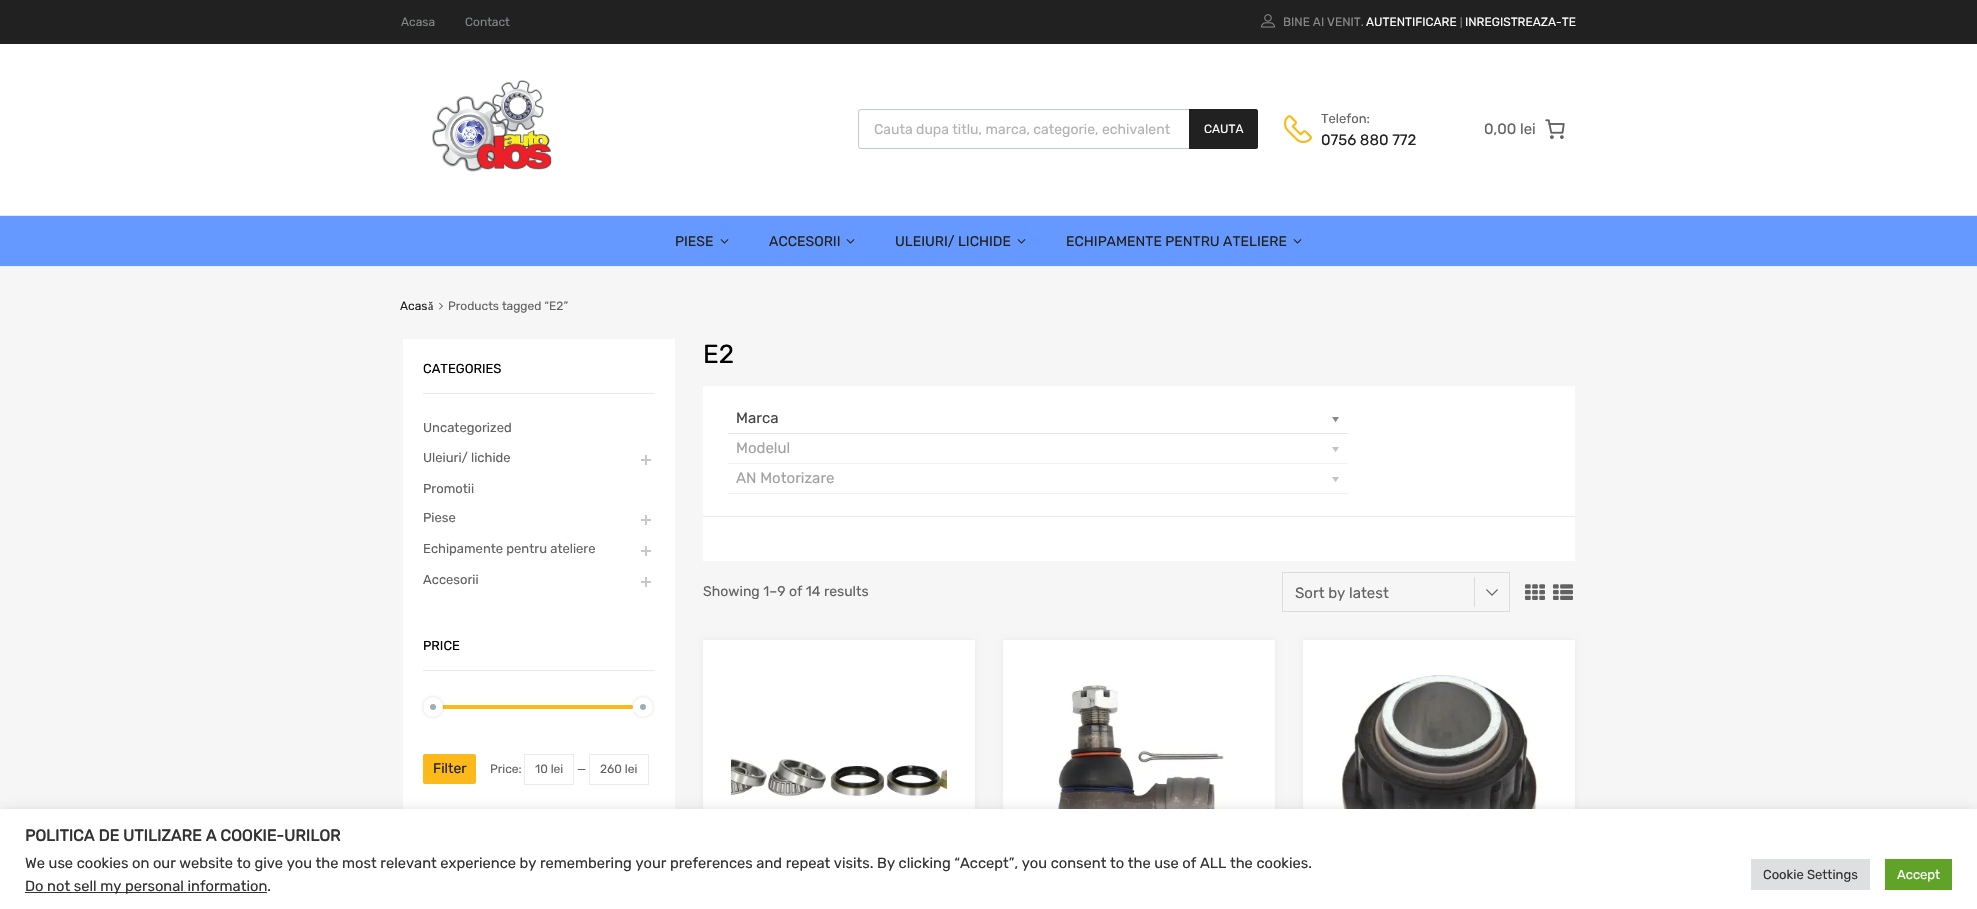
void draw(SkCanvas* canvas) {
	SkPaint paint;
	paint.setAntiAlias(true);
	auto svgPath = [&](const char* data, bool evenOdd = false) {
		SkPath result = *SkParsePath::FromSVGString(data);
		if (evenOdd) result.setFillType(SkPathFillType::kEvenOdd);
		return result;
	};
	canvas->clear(0xfff6f6f6);
	paint.setColor(0xffffffff);
	canvas->drawRect(SkRect::MakeXYWH(0, 44, 1977, 171), paint);
	paint.setColor(0xff212121);
	canvas->drawRect(SkRect::MakeXYWH(0, 0, 1977, 44), paint);
	SkFont f1(fontMgr->matchFamilyStyle("Rubik", SkFontStyle::Normal()), 12);
	f1.setSubpixel(true);
	paint.setColor(0xff81858c);
	canvas->drawString("Acasa", 401, 26, f1, paint);
	canvas->drawString("Contact", 465, 26, f1, paint);
	canvas->drawImageRect(SkImages::DeferredFromEncodedData(SkData::MakeFromFileName("img1.png")), SkRect::MakeXYWH(1261, 14, 14, 14), SkSamplingOptions());
	paint.setColor(0xff8b8b8b);
	canvas->drawString("BINE AI VENIT.", 1283, 26, f1, paint);
	paint.setColor(0xffffffff);
	canvas->drawString("AUTENTIFICARE", 1366, 26, f1, paint);
	SkFont f2(fontMgr->matchFamilyStyle("Rubik", SkFontStyle::Normal()), 10);
	f2.setSubpixel(true);
	paint.setColor(0xff8b8b8b);
	canvas->drawString("|", 1460, 26, f2, paint);
	paint.setColor(0xffffffff);
	canvas->drawString("INREGISTREAZA-TE", 1465, 26, f1, paint);
	canvas->drawImageRect(SkImages::DeferredFromEncodedData(SkData::MakeFromFileName("img2.png")), SkRect::MakeXYWH(432, 80, 121, 92), SkSamplingOptions());
	paint.setStroke(true);
	paint.setStrokeWidth(1);
	paint.setColor(0xffbec8ce);
	canvas->drawRoundRect(SkRect::MakeXYWH(858.5, 109.5, 399, 39), 2.5, 2.5, paint);
	SkFont f3(fontMgr->matchFamilyStyle("Rubik", SkFontStyle::Normal()), 14);
	f3.setSubpixel(true);
	paint.setStroke(false);
	paint.setColor(0xffb3b3b3);
	canvas->drawString("Cauta dupa titlu, marca, categorie, echivalent", 874, 134, f3, paint);
	paint.setColor(0xff212121);
	canvas->drawPath(svgPath("M1189 109H1256C1257 109 1258 110 1258 111V147C1258 148 1257 149 1256 149H1189Z"), paint);
	paint.setColor(0xffffffff);
	canvas->drawString("CAUTA", 1204, 133, f1, paint);
	canvas->drawImageRect(SkImages::DeferredFromEncodedData(SkData::MakeFromFileName("img3.png")), SkRect::MakeXYWH(1284, 115, 28, 29), SkSamplingOptions());
	SkFont f4(fontMgr->matchFamilyStyle("Rubik", SkFontStyle::Normal()), 13);
	f4.setSubpixel(true);
	paint.setColor(0xff626262);
	canvas->drawString("Telefon:", 1321, 123, f4, paint);
	SkFont f5(fontMgr->matchFamilyStyle("Rubik", SkFontStyle::Normal()), 15);
	f5.setSubpixel(true);
	paint.setColor(0xff212121);
	canvas->drawString("0756 880 772", 1321, 145, f5, paint);
	paint.setColor(0xff626262);
	canvas->drawString("0,00 lei", 1484, 134, f5, paint);
	canvas->drawImageRect(SkImages::DeferredFromEncodedData(SkData::MakeFromFileName("img4.png")), SkRect::MakeXYWH(1545, 119, 20, 20), SkSamplingOptions());
	paint.setColor(0xff6699ff);
	canvas->drawRect(SkRect::MakeXYWH(0, 216, 1977, 50), paint);
	paint.setColor(0xffebebeb);
	canvas->drawRect(SkRect::MakeXYWH(0, 215, 1977, 1), paint);
	canvas->drawRect(SkRect::MakeXYWH(0, 266, 1977, 1), paint);
	paint.setColor(0xff212121);
	canvas->drawString("PIESE", 675, 246, f3, paint);
	canvas->drawImageRect(SkImages::DeferredFromEncodedData(SkData::MakeFromFileName("img5.png")), SkRect::MakeXYWH(720, 239, 9, 5), SkSamplingOptions());
	canvas->drawString("ACCESORII", 769, 246, f3, paint);
	canvas->drawImageRect(SkImages::DeferredFromEncodedData(SkData::MakeFromFileName("img5.png")), SkRect::MakeXYWH(846, 239, 9, 5), SkSamplingOptions());
	canvas->drawString("ULEIURI/ LICHIDE", 895, 246, f3, paint);
	canvas->drawImageRect(SkImages::DeferredFromEncodedData(SkData::MakeFromFileName("img5.png")), SkRect::MakeXYWH(1017, 239, 9, 5), SkSamplingOptions());
	canvas->drawString("ECHIPAMENTE PENTRU ATELIERE", 1066, 246, f3, paint);
	canvas->drawImageRect(SkImages::DeferredFromEncodedData(SkData::MakeFromFileName("img5.png")), SkRect::MakeXYWH(1293, 239, 9, 5), SkSamplingOptions());
	canvas->drawString("Acas", 400, 310, f1, paint);
	SkFont f6(fontMgr->matchFamilyStyle("Liberation Serif", SkFontStyle::Normal()), 12);
	f6.setSubpixel(true);
	canvas->drawString("ă", 428, 310, f6, paint);
	canvas->drawImageRect(SkImages::DeferredFromEncodedData(SkData::MakeFromFileName("img6.png")), SkRect::MakeXYWH(439, 302, 4, 8), SkSamplingOptions());
	paint.setColor(0xff626262);
	canvas->drawString("Products tagged “E2”", 448, 310, f1, paint);
	paint.setColor(0xffffffff);
	canvas->drawRect(SkRect::MakeXYWH(403, 339, 272, 470), paint);
	paint.setColor(0xffebebeb);
	canvas->drawRect(SkRect::MakeXYWH(423, 393, 232, 1), paint);
	paint.setColor(0xff000000);
	canvas->drawString("CATEGORIES", 423, 373, f4, paint);
	paint.setColor(0xff626262);
	canvas->drawString("Uncategorized", 423, 432, f4, paint);
	canvas->drawString("Uleiuri/ lichide", 423, 462, f4, paint);
	paint.setColor(0xffc7c7c7);
	canvas->drawRect(SkRect::MakeXYWH(641, 459, 10, 2), paint);
	canvas->drawRect(SkRect::MakeXYWH(645, 455, 2, 10), paint);
	paint.setColor(0xff626262);
	canvas->drawString("Promotii", 423, 493, f4, paint);
	canvas->drawString("Piese", 423, 522, f4, paint);
	paint.setColor(0xffc7c7c7);
	canvas->drawRect(SkRect::MakeXYWH(641, 519, 10, 2), paint);
	canvas->drawRect(SkRect::MakeXYWH(645, 515, 2, 10), paint);
	paint.setColor(0xff626262);
	canvas->drawString("Echipamente pentru ateliere", 423, 553, f4, paint);
	paint.setColor(0xffc7c7c7);
	canvas->drawRect(SkRect::MakeXYWH(641, 550, 10, 2), paint);
	canvas->drawRect(SkRect::MakeXYWH(645, 546, 2, 10), paint);
	paint.setColor(0xff626262);
	canvas->drawString("Accesorii", 423, 584, f4, paint);
	paint.setColor(0xffc7c7c7);
	canvas->drawRect(SkRect::MakeXYWH(641, 581, 10, 2), paint);
	canvas->drawRect(SkRect::MakeXYWH(645, 577, 2, 10), paint);
	paint.setColor(0xffebebeb);
	canvas->drawRect(SkRect::MakeXYWH(423, 670, 232, 1), paint);
	paint.setColor(0xff000000);
	canvas->drawString("PRICE", 423, 650, f4, paint);
	paint.setColor(0xfff6f6f6);
	canvas->drawRect(SkRect::MakeXYWH(423, 705, 210, 4), paint);
	paint.setColor(0xfffdb819);
	canvas->drawRoundRect(SkRect::MakeXYWH(423, 705, 210, 4), 2, 2, paint);
	paint.setColor(0x26000000);
	paint.setMaskFilter(SkMaskFilter::MakeBlur(kNormal_SkBlurStyle, 1.5));
	canvas->drawRoundRect(SkRect::MakeXYWH(423, 697, 20, 20), 10, 10, paint);
	paint.setMaskFilter(nullptr);
	paint.setColor(0xff9eadb6);
	canvas->drawCircle(433, 707, 6.5, paint);
	paint.setStroke(true);
	paint.setStrokeWidth(7);
	paint.setColor(0xffffffff);
	canvas->drawCircle(433, 707, 6.5, paint);
	paint.setStroke(false);
	paint.setColor(0x26000000);
	paint.setMaskFilter(SkMaskFilter::MakeBlur(kNormal_SkBlurStyle, 1.5));
	canvas->drawRoundRect(SkRect::MakeXYWH(633, 697, 20, 20), 10, 10, paint);
	paint.setMaskFilter(nullptr);
	paint.setColor(0xff9eadb6);
	canvas->drawCircle(643, 707, 6.5, paint);
	paint.setStroke(true);
	paint.setColor(0xffffffff);
	canvas->drawCircle(643, 707, 6.5, paint);
	paint.setStroke(false);
	paint.setColor(0xfffdb819);
	canvas->drawRoundRect(SkRect::MakeXYWH(423, 754, 53, 30), 2, 2, paint);
	paint.setColor(0xff212121);
	canvas->drawString("Filter", 433, 773, f3, paint);
	paint.setColor(0xff626262);
	canvas->drawString("Price:", 490, 773, f1, paint);
	paint.setStroke(true);
	paint.setStrokeWidth(1);
	paint.setColor(0xffebebeb);
	canvas->drawRect(SkRect::MakeXYWH(524.5, 754.5, 49, 30), paint);
	paint.setStroke(false);
	paint.setColor(0xff626262);
	canvas->drawString("10 lei", 535, 773, f1, paint);
	canvas->drawString("—", 577, 773, f1, paint);
	paint.setStroke(true);
	paint.setColor(0xffebebeb);
	canvas->drawRect(SkRect::MakeXYWH(589.5, 754.5, 59, 30), paint);
	paint.setStroke(false);
	paint.setColor(0xff626262);
	canvas->drawString("260 lei", 600, 773, f1, paint);
	SkFont f7(fontMgr->matchFamilyStyle("Rubik", SkFontStyle::Normal()), 26);
	f7.setSubpixel(true);
	paint.setColor(0xff000000);
	canvas->drawString("E2", 703, 363, f7, paint);
	paint.setColor(0xffffffff);
	canvas->drawRect(SkRect::MakeXYWH(703, 386, 872, 175), paint);
	paint.setColor(0xffebebeb);
	canvas->drawRect(SkRect::MakeXYWH(703, 516, 872, 1), paint);
	canvas->save();
	canvas->clipRect(SkRect::MakeXYWH(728, 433, 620, 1));
	paint.setColor(0x1a000000);
	paint.setMaskFilter(SkMaskFilter::MakeBlur(kNormal_SkBlurStyle, 0.5));
	canvas->drawRect(SkRect::MakeXYWH(728, 407, 620, 27), paint);
	paint.setMaskFilter(nullptr);
	canvas->restore();
	paint.setColor(0xff444444);
	canvas->drawString("Marca", 736, 423, f5, paint);
	canvas->drawImageRect(SkImages::DeferredFromEncodedData(SkData::MakeFromFileName("img7.png")), SkRect::MakeXYWH(1332, 417, 7, 6), SkSamplingOptions());
	canvas->save();
	canvas->clipRect(SkRect::MakeXYWH(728, 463, 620, 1));
	paint.setColor(0x1a808080);
	paint.setMaskFilter(SkMaskFilter::MakeBlur(kNormal_SkBlurStyle, 0.5));
	canvas->drawRect(SkRect::MakeXYWH(728, 437, 620, 27), paint);
	paint.setMaskFilter(nullptr);
	canvas->restore();
	paint.setColor(0xffa2a2a2);
	canvas->drawString("Modelul", 736, 453, f5, paint);
	canvas->drawImageRect(SkImages::DeferredFromEncodedData(SkData::MakeFromFileName("img8.png")), SkRect::MakeXYWH(1332, 447, 7, 5), SkSamplingOptions());
	canvas->save();
	canvas->clipRect(SkRect::MakeXYWH(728, 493, 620, 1));
	paint.setColor(0x1a808080);
	paint.setMaskFilter(SkMaskFilter::MakeBlur(kNormal_SkBlurStyle, 0.5));
	canvas->drawRect(SkRect::MakeXYWH(728, 467, 620, 27), paint);
	paint.setMaskFilter(nullptr);
	canvas->restore();
	paint.setColor(0xffa2a2a2);
	canvas->drawString("AN Motorizare", 736, 483, f5, paint);
	canvas->drawImageRect(SkImages::DeferredFromEncodedData(SkData::MakeFromFileName("img8.png")), SkRect::MakeXYWH(1332, 477, 7, 5), SkSamplingOptions());
	paint.setColor(0xff626262);
	canvas->drawString("Showing 1–9 of 14 results", 703, 596, f3, paint);
	paint.setColor(0xffdbdbdb);
	canvas->drawRect(SkRect::MakeXYWH(1474, 577, 1, 30), paint);
	canvas->drawImageRect(SkImages::DeferredFromEncodedData(SkData::MakeFromFileName("img9.png")), SkRect::MakeXYWH(1486, 589, 12, 7), SkSamplingOptions());
	paint.setStroke(true);
	canvas->drawRect(SkRect::MakeXYWH(1282.5, 572.5, 227, 39), paint);
	paint.setStroke(false);
	paint.setColor(0xff626262);
	canvas->drawString("Sort by latest", 1295, 598, f5, paint);
	canvas->drawImageRect(SkImages::DeferredFromEncodedData(SkData::MakeFromFileName("img10.png")), SkRect::MakeXYWH(1525, 584, 20, 16), SkSamplingOptions());
	canvas->drawImageRect(SkImages::DeferredFromEncodedData(SkData::MakeFromFileName("img11.png")), SkRect::MakeXYWH(1553, 584, 20, 16), SkSamplingOptions());
	paint.setColor(0x0d000000);
	paint.setMaskFilter(SkMaskFilter::MakeBlur(kNormal_SkBlurStyle, 2.5));
	canvas->drawRect(SkRect::MakeXYWH(703, 640, 272, 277), paint);
	paint.setMaskFilter(nullptr);
	paint.setColor(0xffffffff);
	canvas->drawRect(SkRect::MakeXYWH(703, 640, 272, 169), paint);
	canvas->drawImageRect(SkImages::DeferredFromEncodedData(SkData::MakeFromFileName("img12.png")), SkRect::MakeXYWH(731, 757, 216, 41), SkSamplingOptions());
	paint.setColor(0x0d000000);
	paint.setMaskFilter(SkMaskFilter::MakeBlur(kNormal_SkBlurStyle, 2.5));
	canvas->drawRect(SkRect::MakeXYWH(1003, 640, 272, 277), paint);
	paint.setMaskFilter(nullptr);
	paint.setColor(0xffffffff);
	canvas->drawRect(SkRect::MakeXYWH(1003, 640, 272, 169), paint);
	canvas->drawImageRect(SkImages::DeferredFromEncodedData(SkData::MakeFromFileName("img13.png")), SkRect::MakeXYWH(1057, 685, 167, 124), SkSamplingOptions());
	paint.setColor(0x0d000000);
	paint.setMaskFilter(SkMaskFilter::MakeBlur(kNormal_SkBlurStyle, 2.5));
	canvas->drawRect(SkRect::MakeXYWH(1303, 640, 272, 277), paint);
	paint.setMaskFilter(nullptr);
	paint.setColor(0xffffffff);
	canvas->drawRect(SkRect::MakeXYWH(1303, 640, 272, 169), paint);
	canvas->drawImageRect(SkImages::DeferredFromEncodedData(SkData::MakeFromFileName("img14.png")), SkRect::MakeXYWH(1339, 674, 199, 135), SkSamplingOptions());
	paint.setColor(0x4dacabab);
	paint.setMaskFilter(SkMaskFilter::MakeBlur(kNormal_SkBlurStyle, 5));
	canvas->drawRect(SkRect::MakeXYWH(0, 808, 1977, 100), paint);
	paint.setMaskFilter(nullptr);
	paint.setColor(0xffffffff);
	canvas->drawRect(SkRect::MakeXYWH(0, 809, 1977, 100), paint);
	SkFont f8(fontMgr->matchFamilyStyle("Rubik", SkFontStyle::Bold()), 16);
	f8.setSubpixel(true);
	paint.setColor(0xff333333);
	canvas->drawString("POLITICA DE UTILIZARE A COOKIE-URILOR", 25, 841, f8, paint);
	SkFont f9(fontMgr->matchFamilyStyle("Rubik", SkFontStyle::Normal()), 14.67);
	f9.setSubpixel(true);
	canvas->drawString("We use cookies on our website to give you the most relevant experience by remembering your preferences and repeat visits. By clicking “Accept”, you consent to the use of ALL the cookies.", 25, 868, f9, paint);
	canvas->drawRect(SkRect::MakeXYWH(25, 892, 242, 1), paint);
	canvas->drawString("Do not sell my personal information.", 25, 891, f9, paint);
	paint.setColor(0xffdedfe0);
	canvas->drawRect(SkRect::MakeXYWH(1751, 859, 119, 31), paint);
	paint.setColor(0xff333333);
	canvas->drawString("Cookie Settings", 1763, 879, f4, paint);
	paint.setColor(0xff61a229);
	canvas->drawRect(SkRect::MakeXYWH(1885, 859, 67, 31), paint);
	paint.setColor(0xffffffff);
	canvas->drawString("Accept", 1897, 879, f4, paint);
}
